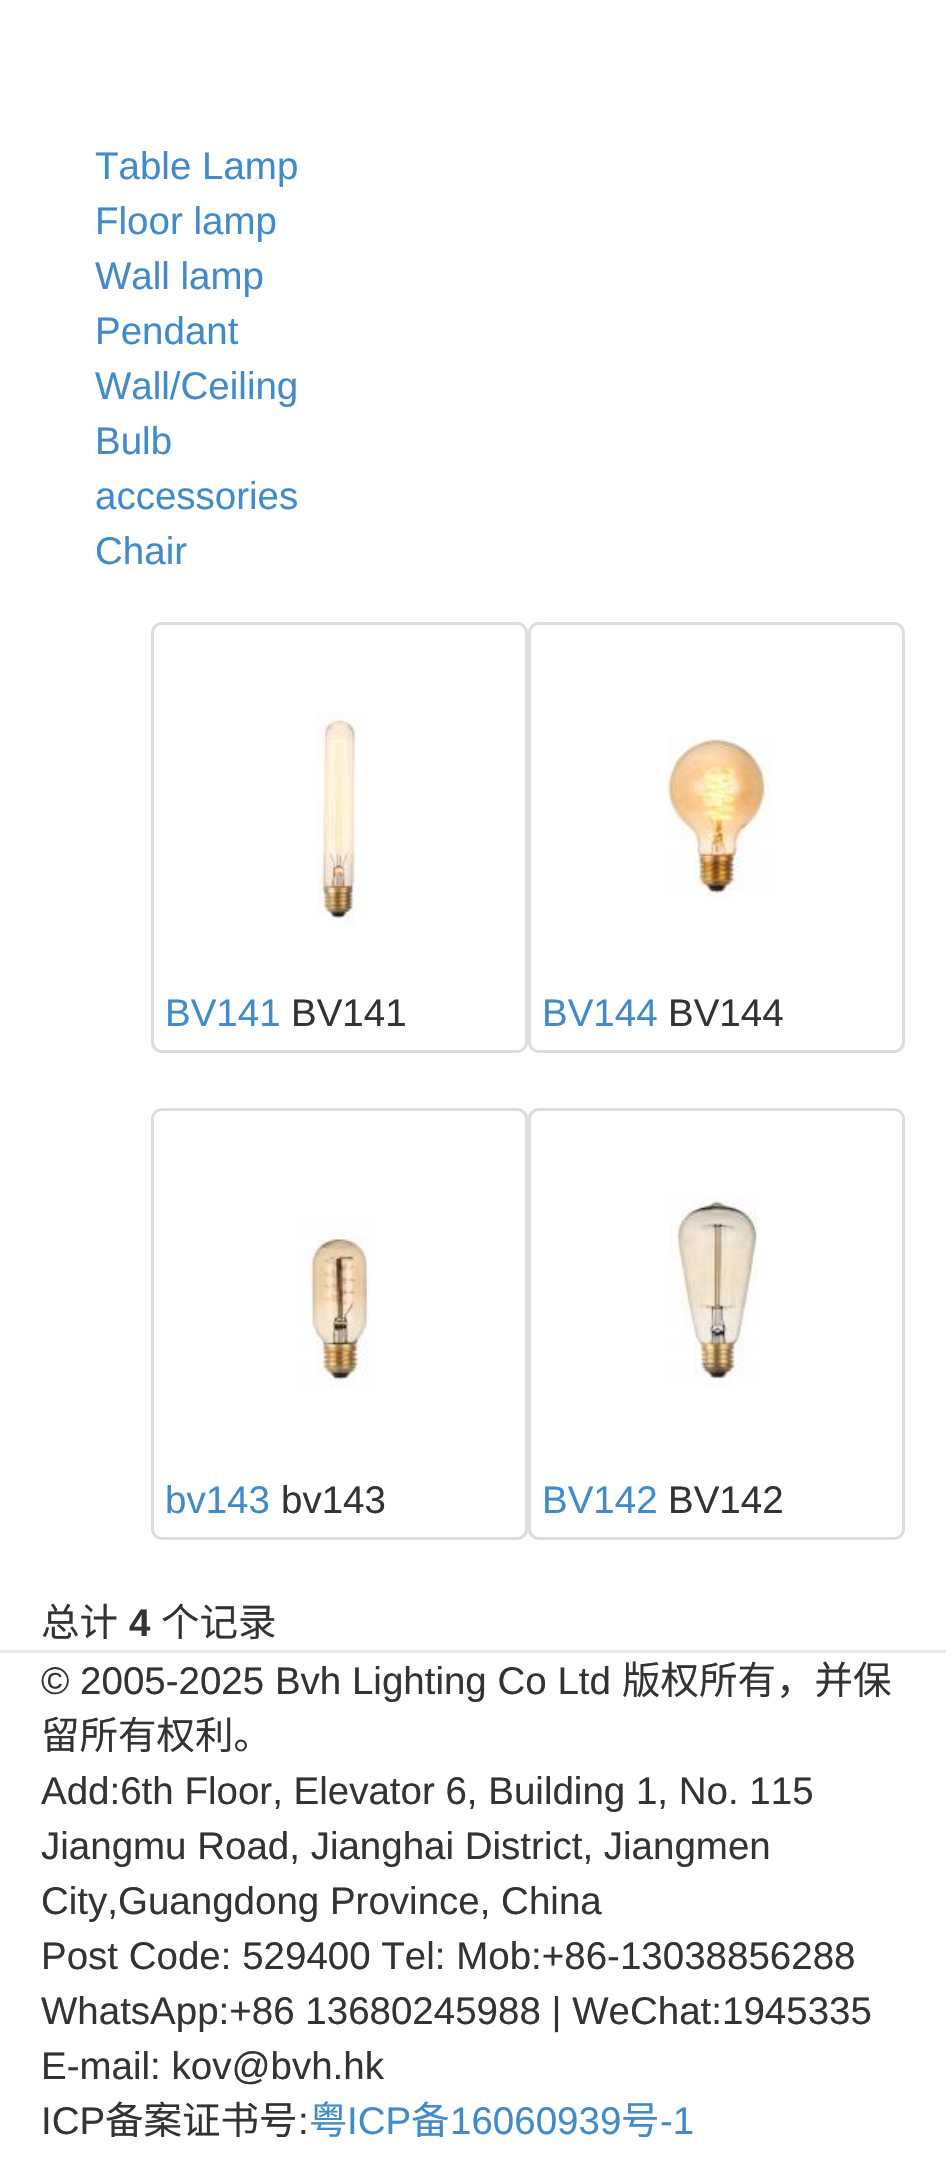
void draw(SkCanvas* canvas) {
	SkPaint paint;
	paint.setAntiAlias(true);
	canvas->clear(0xffffffff);
	SkFont f1(fontMgr->matchFamilyStyle("Liberation Sans", SkFontStyle::Normal()), 38.5);
	f1.setSubpixel(true);
	paint.setColor(0xff428bca);
	canvas->drawString("Table Lamp", 95, 179, f1, paint);
	canvas->drawString("Floor lamp", 95, 234, f1, paint);
	canvas->drawString("Wall lamp", 95, 289, f1, paint);
	canvas->drawString("Pendant", 95, 344, f1, paint);
	canvas->drawString("Wall/Ceiling", 95, 399, f1, paint);
	canvas->drawString("Bulb", 95, 454, f1, paint);
	canvas->drawString("accessories", 95, 509, f1, paint);
	canvas->drawString("Chair", 95, 564, f1, paint);
	paint.setStroke(true);
	paint.setStrokeWidth(3);
	paint.setColor(0xffdddddd);
	canvas->drawRoundRect(SkRect::MakeXYWH(152.5, 623.5, 374, 428), 9.5, 9.5, paint);
	canvas->drawImageRect(SkImages::DeferredFromEncodedData(SkData::MakeFromFileName("img1.png")), SkRect::MakeXYWH(317, 712, 51, 215), SkSamplingOptions());
	paint.setStroke(false);
	paint.setColor(0xff428bca);
	canvas->drawString("BV141", 165, 1026, f1, paint);
	paint.setColor(0xff333333);
	canvas->drawString("BV141", 291, 1026, f1, paint);
	paint.setStroke(true);
	paint.setColor(0xffdddddd);
	canvas->drawRoundRect(SkRect::MakeXYWH(529.5, 623.5, 374, 428), 9.5, 9.5, paint);
	canvas->drawImageRect(SkImages::DeferredFromEncodedData(SkData::MakeFromFileName("img2.png")), SkRect::MakeXYWH(667, 736, 104, 164), SkSamplingOptions());
	paint.setStroke(false);
	paint.setColor(0xff428bca);
	canvas->drawString("BV144", 542, 1026, f1, paint);
	paint.setColor(0xff333333);
	canvas->drawString("BV144", 668, 1026, f1, paint);
	paint.setStroke(true);
	paint.setColor(0xffdddddd);
	canvas->drawRoundRect(SkRect::MakeXYWH(152.5, 1109.5, 374, 429), 9.5, 9.5, paint);
	canvas->drawImageRect(SkImages::DeferredFromEncodedData(SkData::MakeFromFileName("img3.png")), SkRect::MakeXYWH(297, 1223, 73, 166), SkSamplingOptions());
	paint.setStroke(false);
	paint.setColor(0xff428bca);
	canvas->drawString("bv143", 165, 1513, f1, paint);
	paint.setColor(0xff333333);
	canvas->drawString("bv143", 281, 1513, f1, paint);
	paint.setStroke(true);
	paint.setColor(0xffdddddd);
	canvas->drawRoundRect(SkRect::MakeXYWH(529.5, 1109.5, 374, 429), 9.5, 9.5, paint);
	canvas->drawImageRect(SkImages::DeferredFromEncodedData(SkData::MakeFromFileName("img4.png")), SkRect::MakeXYWH(669, 1198, 89, 189), SkSamplingOptions());
	paint.setStroke(false);
	paint.setColor(0xff428bca);
	canvas->drawString("BV142", 542, 1513, f1, paint);
	paint.setColor(0xff333333);
	canvas->drawString("BV142", 668, 1513, f1, paint);
	SkFont f2(fontMgr->matchFamilyStyle("Noto Sans CJK SC", SkFontStyle::Normal()), 38.5);
	f2.setSubpixel(true);
	canvas->drawString("总计", 41, 1636, f2, paint);
	SkFont f3(fontMgr->matchFamilyStyle("Liberation Sans", SkFontStyle::Bold()), 38.5);
	f3.setSubpixel(true);
	canvas->drawString("4", 129, 1636, f3, paint);
	canvas->drawString("个记录", 161, 1636, f2, paint);
	paint.setColor(0xffe7e7e7);
	canvas->drawRect(SkRect::MakeXYWH(0, 1650, 946, 3), paint);
	paint.setColor(0xff333333);
	canvas->drawString("© 2005-2025 Bvh Lighting Co Ltd", 41, 1694, f1, paint);
	canvas->drawString("版权所有，并保", 622, 1694, f2, paint);
	canvas->drawString("留所有权利。", 41, 1749, f2, paint);
	canvas->drawString("Add:6th Floor, Elevator 6, Building 1, No. 115", 41, 1804, f1, paint);
	canvas->drawString("Jiangmu Road, Jianghai District, Jiangmen", 41, 1859, f1, paint);
	canvas->drawString("City,Guangdong Province, China", 41, 1914, f1, paint);
	canvas->drawString("Post Code: 529400 Tel: Mob:+86-13038856288", 41, 1969, f1, paint);
	canvas->drawString("WhatsApp:+86 13680245988 | WeChat:1945335", 41, 2024, f1, paint);
	canvas->drawString("E-mail: kov@bvh.hk", 41, 2079, f1, paint);
	canvas->drawString("ICP", 41, 2134, f1, paint);
	canvas->drawString("备案证书号", 105, 2134, f2, paint);
	canvas->drawString(":", 298, 2134, f1, paint);
	paint.setColor(0xff428bca);
	canvas->drawString("粤", 309, 2134, f2, paint);
	canvas->drawString("ICP", 347, 2134, f1, paint);
	canvas->drawString("备", 411, 2134, f2, paint);
	canvas->drawString("16060939", 450, 2134, f1, paint);
	canvas->drawString("号", 621, 2134, f2, paint);
	canvas->drawString("-1", 660, 2134, f1, paint);
}
